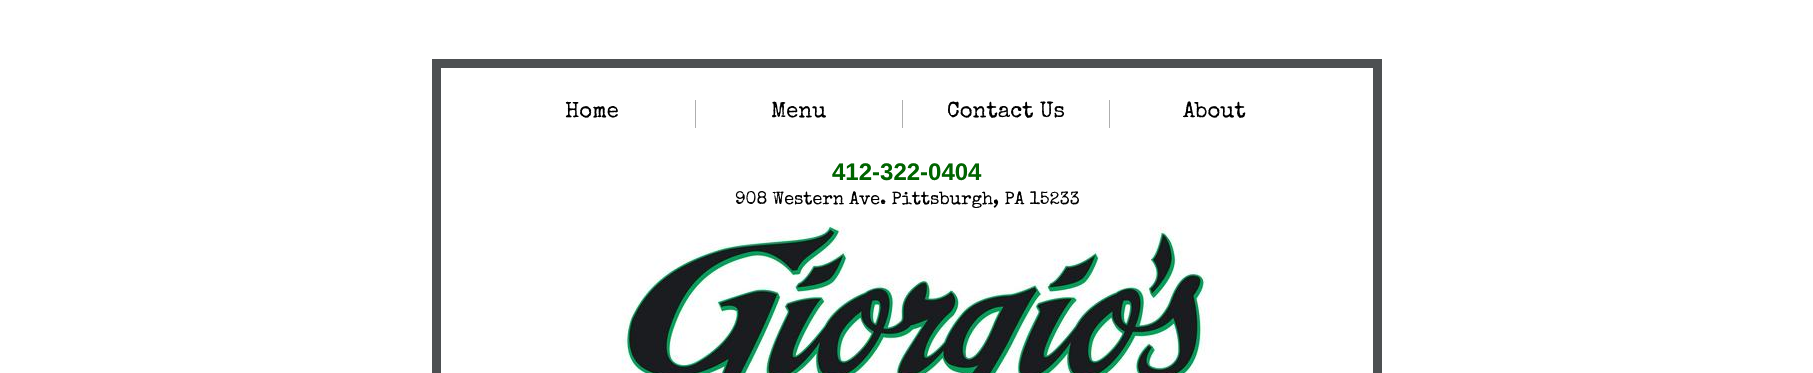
void draw(SkCanvas* canvas) {
	SkPaint paint;
	paint.setAntiAlias(true);
	canvas->clear(0xffffffff);
	paint.setStroke(true);
	paint.setStrokeWidth(9);
	paint.setColor(0xff4d5052);
	canvas->drawRect(SkRect::MakeXYWH(436.5, 63.5, 941, 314), paint);
	paint.setStroke(false);
	paint.setColor(0xffaeaeae);
	canvas->drawRect(SkRect::MakeXYWH(695, 100, 1, 28), paint);
	SkFont f1(fontMgr->matchFamilyStyle("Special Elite", SkFontStyle::Normal()), 22);
	f1.setSubpixel(true);
	paint.setColor(0xff000000);
	canvas->drawString("Home", 565, 117, f1, paint);
	paint.setColor(0xffaeaeae);
	canvas->drawRect(SkRect::MakeXYWH(902, 100, 1, 28), paint);
	paint.setColor(0xff000000);
	canvas->drawString("Menu", 771, 117, f1, paint);
	paint.setColor(0xffaeaeae);
	canvas->drawRect(SkRect::MakeXYWH(1109, 100, 1, 28), paint);
	paint.setColor(0xff000000);
	canvas->drawString("Contact Us", 947, 117, f1, paint);
	canvas->drawString("About", 1183, 117, f1, paint);
	SkFont f2(fontMgr->matchFamilyStyle("Liberation Sans", SkFontStyle::Bold()), 24);
	f2.setSubpixel(true);
	paint.setColor(0xff006400);
	canvas->drawString("412-322-0404", 832, 180, f2, paint);
	SkFont f3(fontMgr->matchFamilyStyle("Special Elite", SkFontStyle::Normal()), 18);
	f3.setSubpixel(true);
	paint.setColor(0xff000000);
	canvas->drawString("908 Western Ave. Pittsburgh, PA 15233", 735, 204, f3, paint);
	canvas->drawImageRect(SkImages::DeferredFromEncodedData(SkData::MakeFromFileName("img1.png")), SkRect::MakeXYWH(621, 226, 593, 147), SkSamplingOptions());
}
